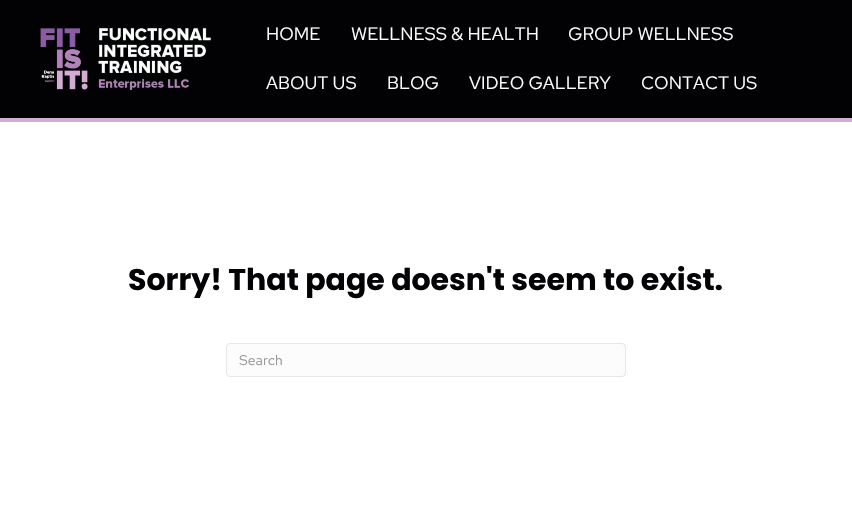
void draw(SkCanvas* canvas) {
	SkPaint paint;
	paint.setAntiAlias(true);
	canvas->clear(0xffffffff);
	paint.setColor(0xff020204);
	canvas->drawRect(SkRect::MakeXYWH(0, 0, 852, 118), paint);
	paint.setColor(0xffd2aed3);
	canvas->drawRect(SkRect::MakeXYWH(0, 118, 852, 4), paint);
	canvas->drawImageRect(SkImages::DeferredFromEncodedData(SkData::MakeFromFileName("img1.png")), SkRect::MakeXYWH(40, 27, 171, 63), SkSamplingOptions());
	SkFont f1(fontMgr->matchFamilyStyle("Red Hat Text", SkFontStyle::Normal()), 18);
	f1.setSubpixel(true);
	paint.setColor(0xffffffff);
	canvas->drawString("HOME", 266, 40, f1, paint);
	canvas->drawString("WELLNESS & HEALTH", 351, 40, f1, paint);
	canvas->drawString("GROUP WELLNESS", 568, 40, f1, paint);
	canvas->drawString("ABOUT US", 266, 89, f1, paint);
	canvas->drawString("BLOG", 387, 89, f1, paint);
	canvas->drawString("VIDEO GALLERY", 469, 89, f1, paint);
	canvas->drawString("CONTACT US", 641, 89, f1, paint);
	SkFont f2(fontMgr->matchFamilyStyle("Poppins", SkFontStyle::Bold()), 30);
	f2.setSubpixel(true);
	paint.setColor(0xff020204);
	canvas->drawString("Sorry! That page doesn't seem to exist.", 128, 290, f2, paint);
	paint.setColor(0xfffcfcfc);
	canvas->drawRoundRect(SkRect::MakeXYWH(226.5, 343.5, 399, 33), 3.5, 3.5, paint);
	paint.setStroke(true);
	paint.setStrokeWidth(1);
	paint.setColor(0xffe6e6e6);
	canvas->drawRoundRect(SkRect::MakeXYWH(226.5, 343.5, 399, 33), 3.5, 3.5, paint);
	SkFont f3(fontMgr->matchFamilyStyle("Red Hat Text", SkFontStyle::Normal()), 14);
	f3.setSubpixel(true);
	paint.setStroke(false);
	paint.setColor(0xff979797);
	canvas->drawString("Search", 239, 365, f3, paint);
}
